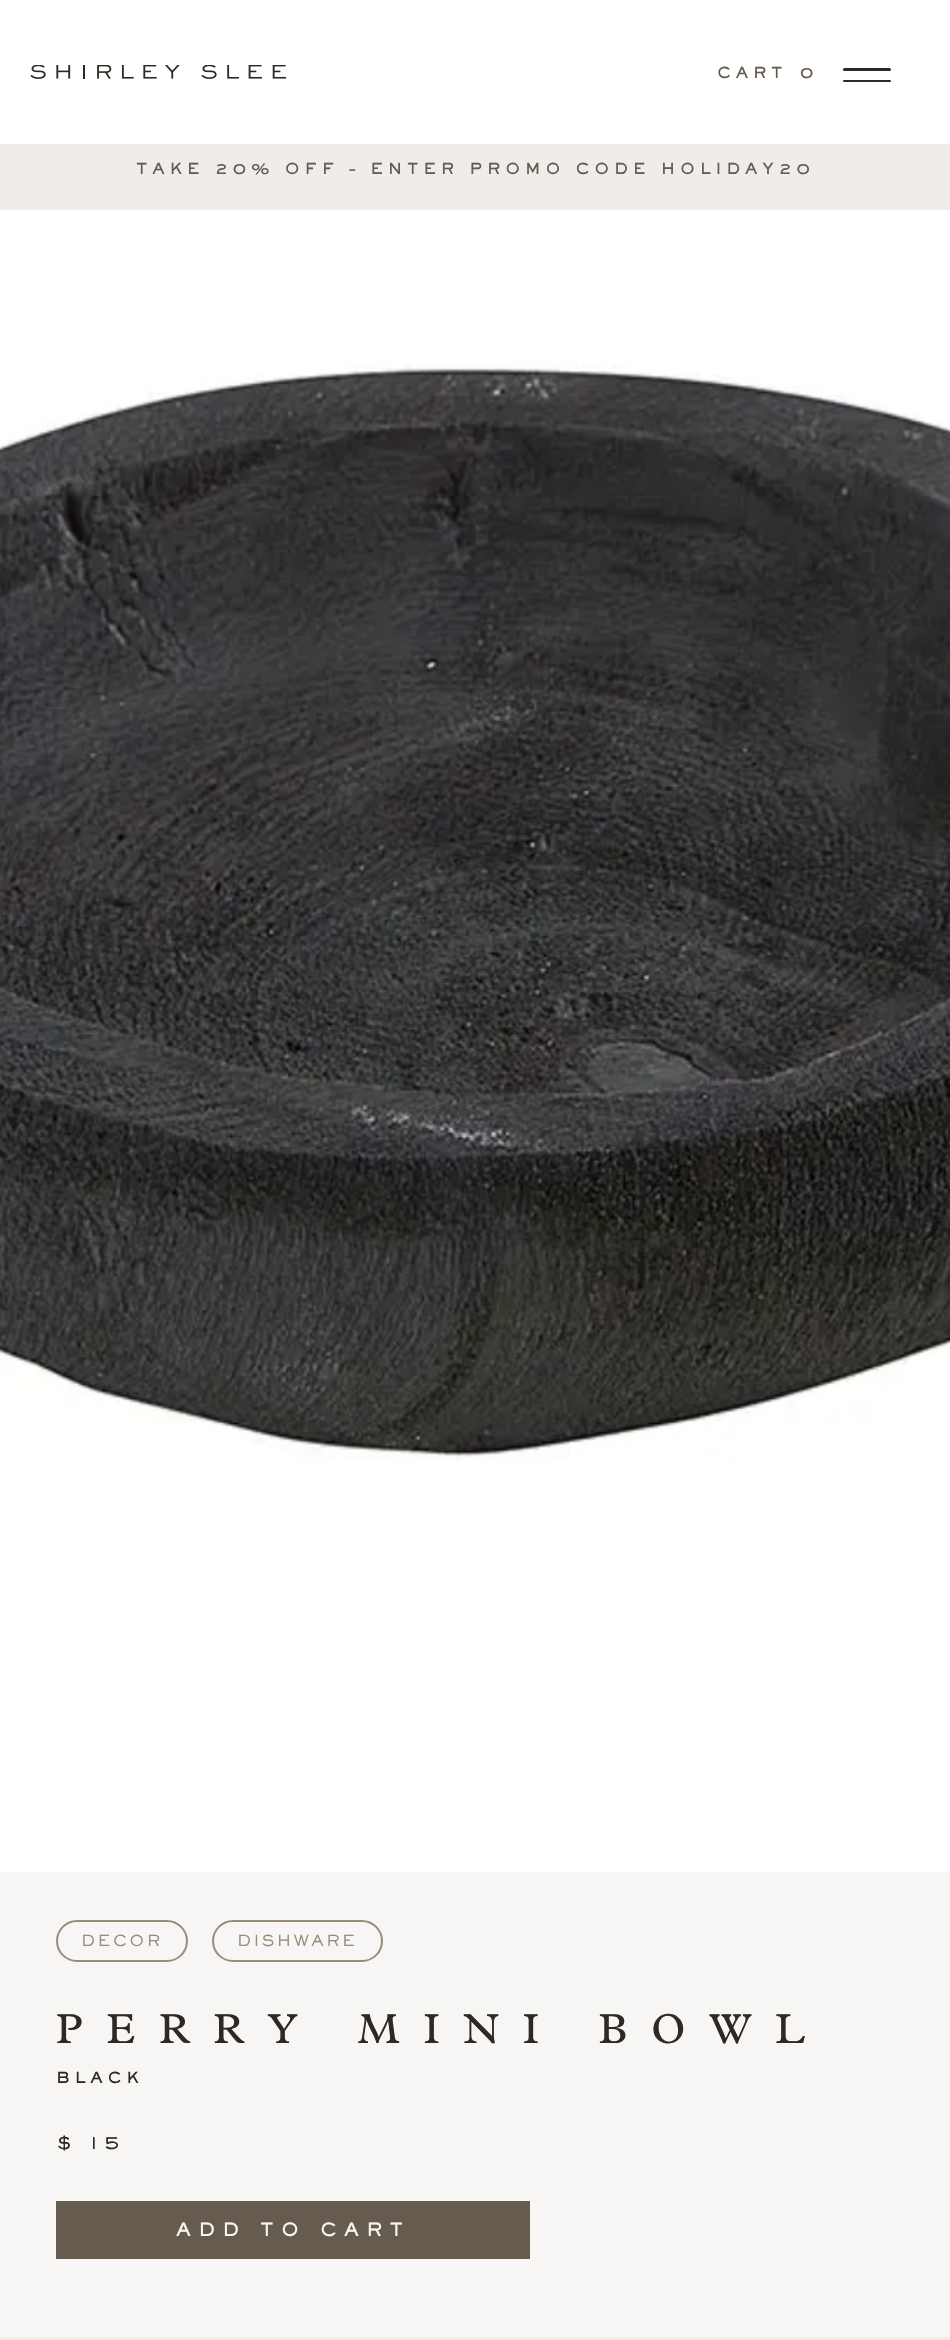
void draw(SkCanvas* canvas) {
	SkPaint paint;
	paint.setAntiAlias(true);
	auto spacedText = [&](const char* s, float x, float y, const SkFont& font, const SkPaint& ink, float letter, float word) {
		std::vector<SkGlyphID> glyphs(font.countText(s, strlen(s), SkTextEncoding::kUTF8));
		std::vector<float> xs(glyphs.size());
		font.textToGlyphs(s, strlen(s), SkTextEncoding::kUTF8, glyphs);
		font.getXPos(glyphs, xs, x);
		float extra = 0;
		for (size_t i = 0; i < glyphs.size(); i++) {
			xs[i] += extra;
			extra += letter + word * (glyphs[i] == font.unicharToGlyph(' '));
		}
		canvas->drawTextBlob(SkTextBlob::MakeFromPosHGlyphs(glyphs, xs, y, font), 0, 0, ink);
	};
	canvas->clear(0xfff8f6f4);
	canvas->drawImageRect(SkImages::DeferredFromEncodedData(SkData::MakeFromFileName("img2.png")), SkRect::MakeXYWH(0, 0, 950, 1872), SkSamplingOptions());
	canvas->drawImageRect(SkImages::DeferredFromEncodedData(SkData::MakeFromFileName("img1.png")), SkRect::MakeXYWH(30, 65, 257, 14), SkSamplingOptions());
	SkFont f1(fontMgr->matchFamilyStyle("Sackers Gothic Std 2", SkFontStyle::Normal()), 15);
	f1.setSubpixel(true);
	paint.setColor(0xff655b4e);
	spacedText("CART", 717, 78, f1, paint, 4.8, 0);
	canvas->drawString("0", 800, 78, f1, paint);
	paint.setColor(0xff2e2923);
	canvas->drawRoundRect(SkRect::MakeXYWH(843, 68, 48, 3), 1.5, 1.5, paint);
	canvas->drawRoundRect(SkRect::MakeXYWH(843, 80, 48, 2), 1, 1, paint);
	paint.setColor(0xffefecea);
	canvas->drawRect(SkRect::MakeXYWH(0, 144, 950, 66), paint);
	paint.setColor(0xff655b4e);
	spacedText("TAKE 20% OFF – ENTER PROMO CODE HOLIDAY20", 136, 174, f1, paint, 4.8, 0);
	paint.setStroke(true);
	paint.setStrokeWidth(2);
	paint.setColor(0xff998c7b);
	canvas->drawRoundRect(SkRect::MakeXYWH(57, 1921, 130, 40), 20, 20, paint);
	SkFont f2(fontMgr->matchFamilyStyle("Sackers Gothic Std", SkFontStyle::Normal()), 15);
	f2.setSubpixel(true);
	paint.setStroke(false);
	spacedText("DECOR", 81, 1946, f2, paint, 2.5, 0);
	paint.setStroke(true);
	canvas->drawRoundRect(SkRect::MakeXYWH(213, 1921, 169, 40), 20, 20, paint);
	paint.setStroke(false);
	spacedText("DISHWARE", 237, 1946, f2, paint, 2.5, 0);
	SkFont f3(fontMgr->matchFamilyStyle("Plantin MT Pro", SkFontStyle::Normal()), 42);
	f3.setSubpixel(true);
	paint.setColor(0xff2e2923);
	spacedText("PERRY MINI BOWL", 56, 2043, f3, paint, 24, 0);
	spacedText("BLACK", 56, 2083, f1, paint, 4.8, 0);
	SkFont f4(fontMgr->matchFamilyStyle("Sackers Gothic Std", SkFontStyle::Normal()), 18);
	f4.setSubpixel(true);
	spacedText("$ 15", 56, 2149, f4, paint, 4.8, 0);
	paint.setColor(0xff655b4e);
	canvas->drawRect(SkRect::MakeXYWH(56, 2201, 474, 58), paint);
	SkFont f5(fontMgr->matchFamilyStyle("Sackers Gothic Std 2", SkFontStyle::Normal()), 18);
	f5.setSubpixel(true);
	paint.setColor(0xfff8f6f4);
	spacedText("ADD TO CART", 176, 2236, f5, paint, 7.25, 0);
	paint.setColor(0xffefecea);
	canvas->drawRect(SkRect::MakeXYWH(0, 2337, 950, 3), paint);
}
